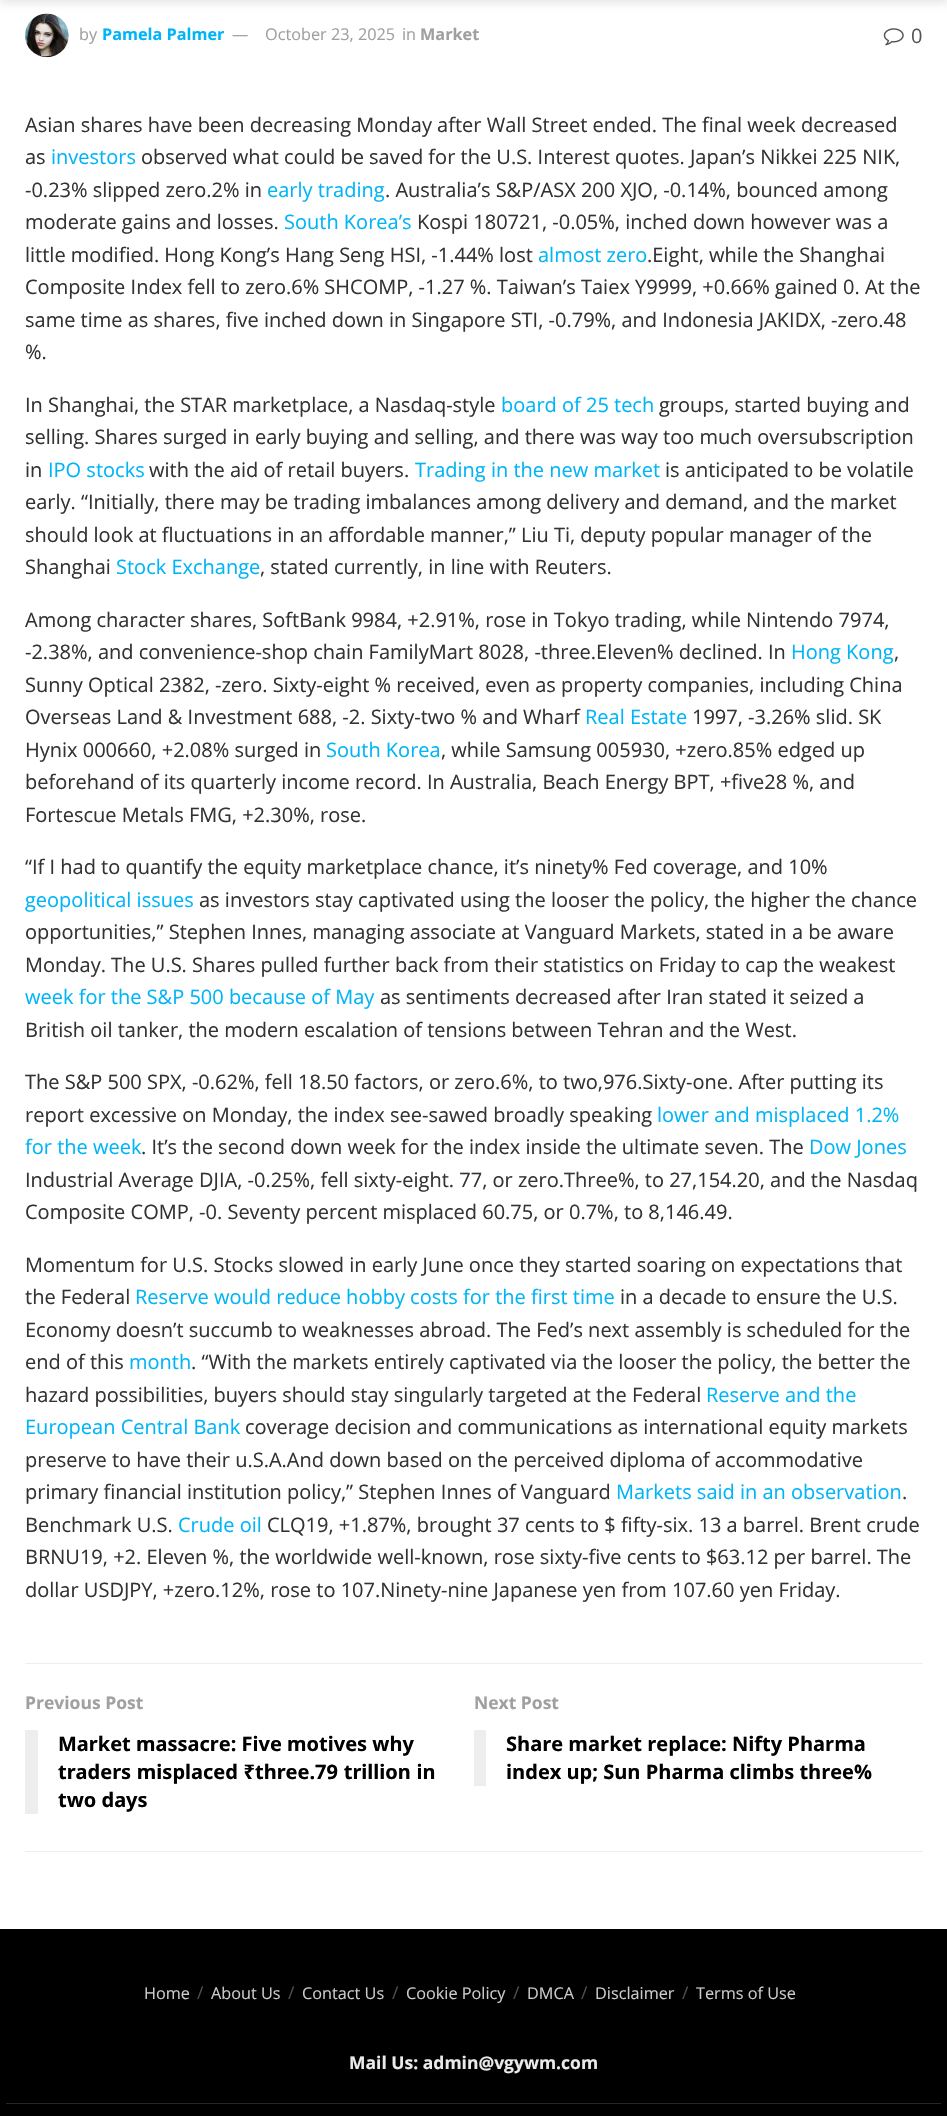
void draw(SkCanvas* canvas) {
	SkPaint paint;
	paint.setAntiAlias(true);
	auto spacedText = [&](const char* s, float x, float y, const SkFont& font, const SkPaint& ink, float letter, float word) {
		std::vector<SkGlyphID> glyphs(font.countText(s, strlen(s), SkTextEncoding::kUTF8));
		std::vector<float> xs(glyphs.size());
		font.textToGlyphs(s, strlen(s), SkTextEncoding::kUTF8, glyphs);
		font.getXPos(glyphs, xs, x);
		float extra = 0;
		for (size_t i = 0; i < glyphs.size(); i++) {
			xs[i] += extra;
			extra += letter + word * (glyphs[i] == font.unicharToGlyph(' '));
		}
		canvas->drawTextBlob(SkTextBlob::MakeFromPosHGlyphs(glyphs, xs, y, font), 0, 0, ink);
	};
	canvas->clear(0xffffffff);
	canvas->drawImageRect(SkImages::DeferredFromEncodedData(SkData::MakeFromFileName("img1.png")), SkRect::MakeXYWH(25, 13, 44, 45), SkSamplingOptions());
	paint.setColor(0x1a000000);
	paint.setMaskFilter(SkMaskFilter::MakeBlur(kNormal_SkBlurStyle, 4));
	canvas->drawRect(SkRect::MakeXYWH(0, -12, 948, 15), paint);
	paint.setMaskFilter(nullptr);
	SkFont f1(fontMgr->matchFamilyStyle("Open Sans", SkFontStyle::Normal()), 16.25);
	f1.setSubpixel(true);
	paint.setColor(0xffa0a0a0);
	canvas->drawString("by", 79, 40, f1, paint);
	SkFont f2(fontMgr->matchFamilyStyle("Open Sans", SkFontStyle::Bold()), 16.25);
	f2.setSubpixel(true);
	paint.setColor(0xff00b5f7);
	canvas->drawString("Pamela Palmer", 102, 40, f2, paint);
	paint.setColor(0xffa0a0a0);
	canvas->drawString("—", 232, 40, f1, paint);
	canvas->drawString("October 23, 2025", 265, 40, f1, paint);
	canvas->drawString("in", 402, 40, f1, paint);
	canvas->drawString("Market", 420, 40, f2, paint);
	canvas->drawImageRect(SkImages::DeferredFromEncodedData(SkData::MakeFromFileName("img2.png")), SkRect::MakeXYWH(883, 28, 21, 18), SkSamplingOptions());
	SkFont f3(fontMgr->matchFamilyStyle("Open Sans", SkFontStyle::Normal()), 20);
	f3.setSubpixel(true);
	paint.setColor(0xff555555);
	canvas->drawString("0", 911, 43, f3, paint);
	paint.setColor(0xff333333);
	canvas->drawString("Asian shares have been decreasing Monday after Wall Street ended. The final week decreased", 25, 132, f3, paint);
	canvas->drawString("as", 25, 164, f3, paint);
	paint.setColor(0xff00b5f7);
	canvas->drawString("investors", 51, 164, f3, paint);
	paint.setColor(0xff333333);
	canvas->drawString("observed what could be saved for the U.S. Interest quotes. Japan’s Nikkei 225 NIK,", 141, 164, f3, paint);
	canvas->drawString("-0.23% slipped zero.2% in", 25, 197, f3, paint);
	paint.setColor(0xff00b5f7);
	canvas->drawString("early trading", 267, 197, f3, paint);
	paint.setColor(0xff333333);
	canvas->drawString(". Australia’s S&P/ASX 200 XJO, -0.14%, bounced among", 385, 197, f3, paint);
	canvas->drawString("moderate gains and losses.", 25, 229, f3, paint);
	paint.setColor(0xff00b5f7);
	canvas->drawString("South Korea’s", 284, 229, f3, paint);
	paint.setColor(0xff333333);
	canvas->drawString("Kospi 180721, -0.05%, inched down however was a", 417, 229, f3, paint);
	canvas->drawString("little modified. Hong Kong’s Hang Seng HSI, -1.44% lost", 25, 262, f3, paint);
	paint.setColor(0xff00b5f7);
	canvas->drawString("almost zero", 538, 262, f3, paint);
	paint.setColor(0xff333333);
	canvas->drawString(".Eight, while the Shanghai", 647, 262, f3, paint);
	canvas->drawString("Composite Index fell to zero.6% SHCOMP, -1.27 %. Taiwan’s Taiex Y9999, +0.66% gained 0. At the", 25, 294, f3, paint);
	canvas->drawString("same time as shares, five inched down in Singapore STI, -0.79%, and Indonesia JAKIDX, -zero.48", 25, 327, f3, paint);
	canvas->drawString("%.", 25, 359, f3, paint);
	canvas->drawString("In Shanghai, the STAR marketplace, a Nasdaq-style", 25, 412, f3, paint);
	paint.setColor(0xff00b5f7);
	canvas->drawString("board of 25 tech", 501, 412, f3, paint);
	paint.setColor(0xff333333);
	canvas->drawString("groups, started buying and", 659, 412, f3, paint);
	canvas->drawString("selling. Shares surged in early buying and selling, and there was way too much oversubscription", 25, 444, f3, paint);
	canvas->drawString("in", 25, 477, f3, paint);
	paint.setColor(0xff00b5f7);
	canvas->drawString("IPO stocks", 48, 477, f3, paint);
	paint.setColor(0xff333333);
	canvas->drawString("with the aid of retail buyers.", 149, 477, f3, paint);
	paint.setColor(0xff00b5f7);
	canvas->drawString("Trading in the new market", 415, 477, f3, paint);
	paint.setColor(0xff333333);
	canvas->drawString("is anticipated to be volatile", 665, 477, f3, paint);
	canvas->drawString("early. “Initially, there may be trading imbalances among delivery and demand, and the market", 25, 509, f3, paint);
	canvas->drawString("should look at fluctuations in an affordable manner,” Liu Ti, deputy popular manager of the", 25, 542, f3, paint);
	canvas->drawString("Shanghai", 25, 574, f3, paint);
	paint.setColor(0xff00b5f7);
	canvas->drawString("Stock Exchange", 116, 574, f3, paint);
	paint.setColor(0xff333333);
	canvas->drawString(", stated currently, in line with Reuters.", 260, 574, f3, paint);
	canvas->drawString("Among character shares, SoftBank 9984, +2.91%, rose in Tokyo trading, while Nintendo 7974,", 25, 627, f3, paint);
	canvas->drawString("-2.38%, and convenience-shop chain FamilyMart 8028, -three.Eleven% declined. In", 25, 659, f3, paint);
	paint.setColor(0xff00b5f7);
	canvas->drawString("Hong Kong", 791, 659, f3, paint);
	paint.setColor(0xff333333);
	canvas->drawString(",", 894, 659, f3, paint);
	canvas->drawString("Sunny Optical 2382, -zero. Sixty-eight % received, even as property companies, including China", 25, 692, f3, paint);
	canvas->drawString("Overseas Land & Investment 688, -2. Sixty-two % and Wharf", 25, 724, f3, paint);
	paint.setColor(0xff00b5f7);
	canvas->drawString("Real Estate", 585, 724, f3, paint);
	paint.setColor(0xff333333);
	canvas->drawString("1997, -3.26% slid. SK", 692, 724, f3, paint);
	canvas->drawString("Hynix 000660, +2.08% surged in", 25, 757, f3, paint);
	paint.setColor(0xff00b5f7);
	canvas->drawString("South Korea", 326, 757, f3, paint);
	paint.setColor(0xff333333);
	canvas->drawString(", while Samsung 005930, +zero.85% edged up", 441, 757, f3, paint);
	canvas->drawString("beforehand of its quarterly income record. In Australia, Beach Energy BPT, +five28 %, and", 25, 789, f3, paint);
	canvas->drawString("Fortescue Metals FMG, +2.30%, rose.", 25, 822, f3, paint);
	canvas->drawString("“If I had to quantify the equity marketplace chance, it’s ninety% Fed coverage, and 10%", 25, 874, f3, paint);
	paint.setColor(0xff00b5f7);
	canvas->drawString("geopolitical issues", 25, 907, f3, paint);
	paint.setColor(0xff333333);
	canvas->drawString("as investors stay captivated using the looser the policy, the higher the chance", 199, 907, f3, paint);
	canvas->drawString("opportunities,” Stephen Innes, managing associate at Vanguard Markets, stated in a be aware", 25, 939, f3, paint);
	canvas->drawString("Monday. The U.S. Shares pulled further back from their statistics on Friday to cap the weakest", 25, 972, f3, paint);
	paint.setColor(0xff00b5f7);
	canvas->drawString("week for the S&P 500 because of May", 25, 1004, f3, paint);
	paint.setColor(0xff333333);
	canvas->drawString("as sentiments decreased after Iran stated it seized a", 380, 1004, f3, paint);
	canvas->drawString("British oil tanker, the modern escalation of tensions between Tehran and the West.", 25, 1037, f3, paint);
	canvas->drawString("The S&P 500 SPX, -0.62%, fell 18.50 factors, or zero.6%, to two,976.Sixty-one. After putting its", 25, 1089, f3, paint);
	canvas->drawString("report excessive on Monday, the index see-sawed broadly speaking", 25, 1122, f3, paint);
	paint.setColor(0xff00b5f7);
	canvas->drawString("lower and misplaced 1.2%", 657, 1122, f3, paint);
	canvas->drawString("for the week", 25, 1154, f3, paint);
	paint.setColor(0xff333333);
	canvas->drawString(". It’s the second down week for the index inside the ultimate seven. The", 141, 1154, f3, paint);
	paint.setColor(0xff00b5f7);
	canvas->drawString("Dow Jones", 809, 1154, f3, paint);
	paint.setColor(0xff333333);
	canvas->drawString("Industrial Average DJIA, -0.25%, fell sixty-eight. 77, or zero.Three%, to 27,154.20, and the Nasdaq", 25, 1187, f3, paint);
	canvas->drawString("Composite COMP, -0. Seventy percent misplaced 60.75, or 0.7%, to 8,146.49.", 25, 1219, f3, paint);
	canvas->drawString("Momentum for U.S. Stocks slowed in early June once they started soaring on expectations that", 25, 1272, f3, paint);
	canvas->drawString("the Federal", 25, 1304, f3, paint);
	paint.setColor(0xff00b5f7);
	canvas->drawString("Reserve would reduce hobby costs for the first time", 135, 1304, f3, paint);
	paint.setColor(0xff333333);
	canvas->drawString("in a decade to ensure the U.S.", 620, 1304, f3, paint);
	canvas->drawString("Economy doesn’t succumb to weaknesses abroad. The Fed’s next assembly is scheduled for the", 25, 1337, f3, paint);
	canvas->drawString("end of this", 25, 1369, f3, paint);
	paint.setColor(0xff00b5f7);
	canvas->drawString("month", 129, 1369, f3, paint);
	paint.setColor(0xff333333);
	canvas->drawString(". “With the markets entirely captivated via the looser the policy, the better the", 191, 1369, f3, paint);
	canvas->drawString("hazard possibilities, buyers should stay singularly targeted at the Federal", 25, 1402, f3, paint);
	paint.setColor(0xff00b5f7);
	canvas->drawString("Reserve and the", 706, 1402, f3, paint);
	canvas->drawString("European Central Bank", 25, 1434, f3, paint);
	paint.setColor(0xff333333);
	canvas->drawString("coverage decision and communications as international equity markets", 245, 1434, f3, paint);
	canvas->drawString("preserve to have their u.S.A.And down based on the perceived diploma of accommodative", 25, 1467, f3, paint);
	canvas->drawString("primary financial institution policy,” Stephen Innes of Vanguard", 25, 1499, f3, paint);
	paint.setColor(0xff00b5f7);
	canvas->drawString("Markets said in an observation", 616, 1499, f3, paint);
	paint.setColor(0xff333333);
	canvas->drawString(".", 902, 1499, f3, paint);
	canvas->drawString("Benchmark U.S.", 25, 1532, f3, paint);
	paint.setColor(0xff00b5f7);
	canvas->drawString("Crude oil", 178, 1532, f3, paint);
	paint.setColor(0xff333333);
	canvas->drawString("CLQ19, +1.87%, brought 37 cents to $ fifty-six. 13 a barrel. Brent crude", 267, 1532, f3, paint);
	canvas->drawString("BRNU19, +2. Eleven %, the worldwide well-known, rose sixty-five cents to $63.12 per barrel. The", 25, 1564, f3, paint);
	canvas->drawString("dollar USDJPY, +zero.12%, rose to 107.Ninety-nine Japanese yen from 107.60 yen Friday.", 25, 1597, f3, paint);
	paint.setColor(0xffeeeeee);
	canvas->drawRect(SkRect::MakeXYWH(25, 1663, 898, 1), paint);
	canvas->drawRect(SkRect::MakeXYWH(25, 1851, 898, 1), paint);
	SkFont f4(fontMgr->matchFamilyStyle("Open Sans", SkFontStyle::Bold()), 17.5);
	f4.setSubpixel(true);
	paint.setColor(0xffa0a0a0);
	canvas->drawString("Previous Post", 25, 1709, f4, paint);
	paint.setColor(0xffeeeeee);
	canvas->drawRect(SkRect::MakeXYWH(25, 1730, 13, 84), paint);
	SkFont f5(fontMgr->matchFamilyStyle("Noto Sans", SkFontStyle::Bold()), 20);
	f5.setSubpixel(true);
	paint.setColor(0xff000000);
	canvas->drawString("Market massacre: Five motives why", 58, 1751, f5, paint);
	spacedText("traders misplaced ₹three.79 trillion in", 58, 1779, f5, paint, 0, 0.5);
	canvas->drawString("two days", 58, 1807, f5, paint);
	paint.setColor(0xffa0a0a0);
	canvas->drawString("Next Post", 474, 1709, f4, paint);
	paint.setColor(0xffeeeeee);
	canvas->drawRect(SkRect::MakeXYWH(474, 1730, 12, 56), paint);
	SkFont f6(fontMgr->matchFamilyStyle("Open Sans", SkFontStyle::Bold()), 20);
	f6.setSubpixel(true);
	paint.setColor(0xff000000);
	canvas->drawString("Share market replace: Nifty Pharma", 506, 1751, f6, paint);
	canvas->drawString("index up; Sun Pharma climbs three%", 506, 1779, f6, paint);
	canvas->drawRect(SkRect::MakeXYWH(0, 1929, 947, 187), paint);
	paint.setColor(0xffcccccc);
	canvas->drawString("Home", 144, 1999, f1, paint);
	SkFont f7(fontMgr->matchFamilyStyle("Open Sans", SkFontStyle::Normal()), 17.5);
	f7.setSubpixel(true);
	paint.setColor(0xff4d4d4d);
	canvas->drawString("/", 197, 1999, f7, paint);
	paint.setColor(0xffcccccc);
	canvas->drawString("About Us", 211, 1999, f1, paint);
	paint.setColor(0xff4d4d4d);
	canvas->drawString("/", 288, 1999, f7, paint);
	paint.setColor(0xffcccccc);
	canvas->drawString("Contact Us", 302, 1999, f1, paint);
	paint.setColor(0xff4d4d4d);
	canvas->drawString("/", 392, 1999, f7, paint);
	paint.setColor(0xffcccccc);
	canvas->drawString("Cookie Policy", 406, 1999, f1, paint);
	paint.setColor(0xff4d4d4d);
	canvas->drawString("/", 513, 1999, f7, paint);
	paint.setColor(0xffcccccc);
	canvas->drawString("DMCA", 527, 1999, f1, paint);
	paint.setColor(0xff4d4d4d);
	canvas->drawString("/", 581, 1999, f7, paint);
	paint.setColor(0xffcccccc);
	canvas->drawString("Disclaimer", 595, 1999, f1, paint);
	paint.setColor(0xff4d4d4d);
	canvas->drawString("/", 682, 1999, f7, paint);
	paint.setColor(0xffcccccc);
	canvas->drawString("Terms of Use", 696, 1999, f1, paint);
	paint.setColor(0xffeaeaea);
	canvas->drawString("Mail Us: admin@vgywm.com", 349, 2069, f4, paint);
	paint.setColor(0xff262626);
	canvas->drawRect(SkRect::MakeXYWH(6, 2103, 935, 1), paint);
}
